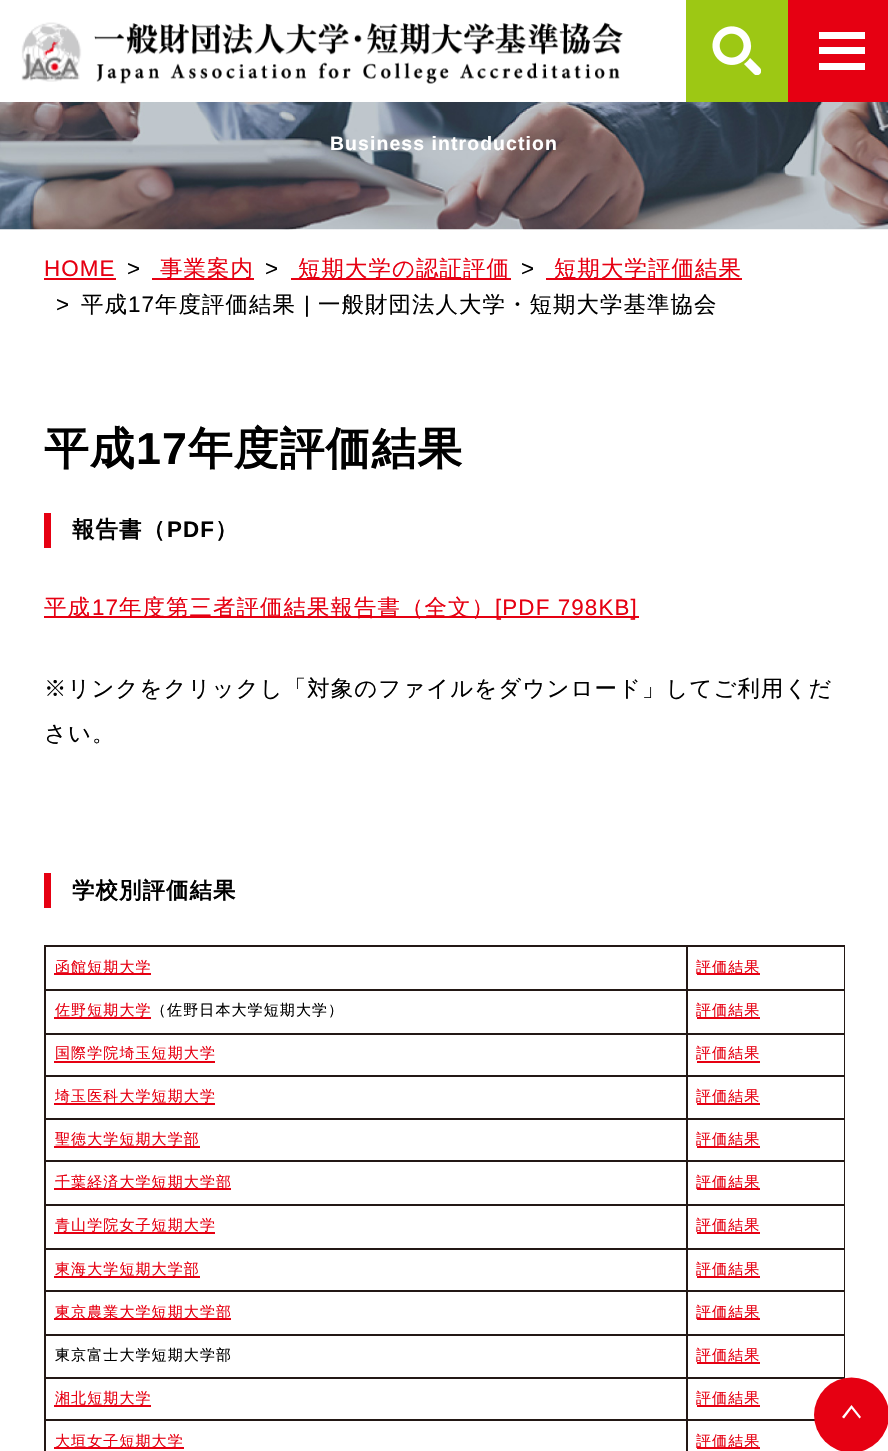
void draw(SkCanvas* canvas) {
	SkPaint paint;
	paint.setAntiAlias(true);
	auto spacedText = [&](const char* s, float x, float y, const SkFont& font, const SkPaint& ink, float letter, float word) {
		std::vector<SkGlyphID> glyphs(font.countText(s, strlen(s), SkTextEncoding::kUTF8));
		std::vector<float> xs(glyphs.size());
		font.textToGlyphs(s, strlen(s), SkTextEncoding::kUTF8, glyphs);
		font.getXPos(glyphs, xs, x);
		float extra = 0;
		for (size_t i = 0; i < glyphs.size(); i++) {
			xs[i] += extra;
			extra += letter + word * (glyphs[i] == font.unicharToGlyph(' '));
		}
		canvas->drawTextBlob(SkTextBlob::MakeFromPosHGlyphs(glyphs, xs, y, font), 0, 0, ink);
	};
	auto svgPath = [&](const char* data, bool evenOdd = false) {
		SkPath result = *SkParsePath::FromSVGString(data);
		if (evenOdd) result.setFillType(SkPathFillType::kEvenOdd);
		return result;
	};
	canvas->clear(0xffffffff);
	canvas->drawImageRect(SkImages::DeferredFromEncodedData(SkData::MakeFromFileName("img1.png")), SkRect::MakeXYWH(21, 22, 602, 62), SkSamplingOptions());
	paint.setColor(0xff9dc814);
	canvas->drawRect(SkRect::MakeXYWH(686, 0, 102, 102), paint);
	canvas->drawImageRect(SkImages::DeferredFromEncodedData(SkData::MakeFromFileName("img2.png")), SkRect::MakeXYWH(712, 26, 49, 49), SkSamplingOptions());
	paint.setColor(0xffe60012);
	canvas->drawRect(SkRect::MakeXYWH(788, 0, 100, 102), paint);
	paint.setColor(0xffffffff);
	canvas->drawRect(SkRect::MakeXYWH(819, 32, 46, 7), paint);
	canvas->drawRect(SkRect::MakeXYWH(819, 47, 46, 7), paint);
	canvas->drawRect(SkRect::MakeXYWH(819, 63, 46, 7), paint);
	canvas->drawImageRect(SkImages::DeferredFromEncodedData(SkData::MakeFromFileName("img3.png")), SkRect::MakeXYWH(0, 102, 888, 128), SkSamplingOptions());
	SkFont f1(fontMgr->matchFamilyStyle("Liberation Sans", SkFontStyle::Bold()), 19.4);
	f1.setSubpixel(true);
	spacedText("Business introduction", 330, 150, f1, paint, 1.1, 0);
	SkFont f2(fontMgr->matchFamilyStyle("Liberation Sans", SkFontStyle::Normal()), 22.4);
	f2.setSubpixel(true);
	paint.setColor(0xffe60012);
	spacedText("HOME", 44, 276, f2, paint, 1.1, 0);
	canvas->drawRect(SkRect::MakeXYWH(44, 278, 72, 2), paint);
	paint.setColor(0xff000000);
	spacedText(">", 127, 276, f2, paint, 1.1, 0);
	paint.setColor(0xffe60012);
	canvas->drawRect(SkRect::MakeXYWH(152, 278, 102, 2), paint);
	SkFont f3(fontMgr->matchFamilyStyle("WenQuanYi Zen Hei", SkFontStyle(500, SkFontStyle::kNormal_Width, SkFontStyle::kUpright_Slant)), 22.4);
	f3.setSubpixel(true);
	spacedText("事業案内", 160, 276, f3, paint, 1.1, 0);
	paint.setColor(0xff000000);
	spacedText(">", 265, 276, f2, paint, 1.1, 0);
	paint.setColor(0xffe60012);
	canvas->drawRect(SkRect::MakeXYWH(291, 278, 220, 2), paint);
	spacedText("短期大学の認証評価", 298, 276, f3, paint, 1.1, 0);
	paint.setColor(0xff000000);
	spacedText(">", 521, 276, f2, paint, 1.1, 0);
	paint.setColor(0xffe60012);
	canvas->drawRect(SkRect::MakeXYWH(546, 278, 196, 2), paint);
	spacedText("短期大学評価結果", 554, 276, f3, paint, 1.1, 0);
	paint.setColor(0xff000000);
	spacedText(">", 56, 312, f2, paint, 1.1, 0);
	spacedText("平成", 81, 312, f3, paint, 1.1, 0);
	spacedText("17", 128, 312, f2, paint, 1.1, 0);
	spacedText("年度評価結果", 155, 312, f3, paint, 1.1, 0);
	spacedText("|", 304, 312, f2, paint, 1.1, 0);
	spacedText("一般財団法人大学・短期大学基準協会", 318, 312, f3, paint, 1.1, 0);
	SkFont f4(fontMgr->matchFamilyStyle("WenQuanYi Zen Hei", SkFontStyle::Bold()), 44.75);
	f4.setSubpixel(true);
	spacedText("平成", 44, 464, f4, paint, 1.1, 0);
	SkFont f5(fontMgr->matchFamilyStyle("Liberation Sans", SkFontStyle::Bold()), 44.75);
	f5.setSubpixel(true);
	spacedText("17", 136, 464, f5, paint, 1.1, 0);
	spacedText("年度評価結果", 188, 464, f4, paint, 1.1, 0);
	paint.setColor(0xffe60012);
	canvas->drawRect(SkRect::MakeXYWH(44, 513, 7, 35), paint);
	SkFont f6(fontMgr->matchFamilyStyle("WenQuanYi Zen Hei", SkFontStyle::Bold()), 22.4);
	f6.setSubpixel(true);
	paint.setColor(0xff000000);
	spacedText("報告書（", 72, 537, f6, paint, 1.1, 0);
	SkFont f7(fontMgr->matchFamilyStyle("Liberation Sans", SkFontStyle::Bold()), 22.4);
	f7.setSubpixel(true);
	spacedText("PDF", 167, 537, f7, paint, 1.1, 0);
	spacedText("）", 215, 537, f6, paint, 1.1, 0);
	paint.setColor(0xffe60012);
	canvas->drawRect(SkRect::MakeXYWH(44, 616, 595, 2), paint);
	spacedText("平成", 44, 615, f3, paint, 1.1, 0);
	spacedText("17", 92, 615, f2, paint, 1.1, 0);
	spacedText("年度第三者評価結果報告書（全文）", 119, 615, f3, paint, 1.1, 0);
	spacedText("[PDF 798KB]", 495, 615, f2, paint, 1.1, 0);
	paint.setColor(0xff000000);
	spacedText("※リンクをクリックし「対象のファイルをダウンロード」してご利用くだ", 44, 696, f3, paint, 1.1, 0);
	spacedText("さい。", 44, 741, f3, paint, 1.1, 0);
	paint.setColor(0xffe60012);
	canvas->drawRect(SkRect::MakeXYWH(44, 873, 7, 35), paint);
	paint.setColor(0xff000000);
	spacedText("学校別評価結果", 72, 898, f6, paint, 1.1, 0);
	paint.setColor(0xff231815);
	canvas->drawRect(SkRect::MakeXYWH(686, 945, 159, 2), paint);
	canvas->drawRect(SkRect::MakeXYWH(686, 989, 159, 2), paint);
	canvas->drawRect(SkRect::MakeXYWH(686, 1033, 159, 2), paint);
	canvas->drawRect(SkRect::MakeXYWH(686, 1075, 159, 2), paint);
	canvas->drawRect(SkRect::MakeXYWH(686, 1118, 159, 2), paint);
	canvas->drawRect(SkRect::MakeXYWH(686, 1160, 159, 2), paint);
	canvas->drawRect(SkRect::MakeXYWH(686, 1204, 159, 2), paint);
	canvas->drawRect(SkRect::MakeXYWH(686, 1248, 159, 2), paint);
	canvas->drawRect(SkRect::MakeXYWH(686, 1290, 159, 2), paint);
	canvas->drawRect(SkRect::MakeXYWH(686, 1334, 159, 2), paint);
	canvas->drawRect(SkRect::MakeXYWH(686, 1377, 159, 2), paint);
	canvas->drawRect(SkRect::MakeXYWH(686, 1419, 129, 2), paint);
	canvas->drawRect(SkRect::MakeXYWH(686, 1419, 2, 32), paint);
	canvas->drawRect(SkRect::MakeXYWH(44, 1419, 644, 2), paint);
	canvas->drawRect(SkRect::MakeXYWH(686, 1377, 2, 44), paint);
	canvas->drawRect(SkRect::MakeXYWH(44, 1377, 644, 2), paint);
	canvas->drawRect(SkRect::MakeXYWH(686, 1334, 2, 45), paint);
	canvas->drawRect(SkRect::MakeXYWH(44, 1334, 644, 2), paint);
	canvas->drawRect(SkRect::MakeXYWH(686, 1290, 2, 45), paint);
	canvas->drawRect(SkRect::MakeXYWH(44, 1290, 644, 2), paint);
	canvas->drawRect(SkRect::MakeXYWH(686, 1248, 2, 44), paint);
	canvas->drawRect(SkRect::MakeXYWH(44, 1248, 644, 2), paint);
	canvas->drawRect(SkRect::MakeXYWH(686, 1204, 2, 46), paint);
	canvas->drawRect(SkRect::MakeXYWH(44, 1204, 644, 2), paint);
	canvas->drawRect(SkRect::MakeXYWH(686, 1160, 2, 46), paint);
	canvas->drawRect(SkRect::MakeXYWH(44, 1160, 644, 2), paint);
	canvas->drawRect(SkRect::MakeXYWH(686, 1118, 2, 44), paint);
	canvas->drawRect(SkRect::MakeXYWH(44, 1118, 644, 2), paint);
	canvas->drawRect(SkRect::MakeXYWH(686, 1075, 2, 45), paint);
	canvas->drawRect(SkRect::MakeXYWH(44, 1075, 644, 2), paint);
	canvas->drawRect(SkRect::MakeXYWH(686, 1033, 2, 43), paint);
	canvas->drawRect(SkRect::MakeXYWH(44, 1033, 644, 2), paint);
	canvas->drawRect(SkRect::MakeXYWH(686, 989, 2, 45), paint);
	canvas->drawRect(SkRect::MakeXYWH(44, 989, 644, 2), paint);
	canvas->drawRect(SkRect::MakeXYWH(686, 945, 2, 46), paint);
	canvas->drawRect(SkRect::MakeXYWH(44, 945, 644, 2), paint);
	canvas->drawRect(SkRect::MakeXYWH(44, 1419, 2, 32), paint);
	canvas->drawRect(SkRect::MakeXYWH(44, 1377, 2, 44), paint);
	canvas->drawRect(SkRect::MakeXYWH(44, 1334, 2, 45), paint);
	canvas->drawRect(SkRect::MakeXYWH(44, 1290, 2, 45), paint);
	canvas->drawRect(SkRect::MakeXYWH(44, 1248, 2, 44), paint);
	canvas->drawRect(SkRect::MakeXYWH(44, 1204, 2, 46), paint);
	canvas->drawRect(SkRect::MakeXYWH(44, 1160, 2, 46), paint);
	canvas->drawRect(SkRect::MakeXYWH(44, 1118, 2, 44), paint);
	canvas->drawRect(SkRect::MakeXYWH(44, 1075, 2, 45), paint);
	canvas->drawRect(SkRect::MakeXYWH(44, 1033, 2, 43), paint);
	canvas->drawRect(SkRect::MakeXYWH(44, 989, 2, 45), paint);
	canvas->drawRect(SkRect::MakeXYWH(44, 945, 2, 46), paint);
	paint.setColor(0xffe60012);
	canvas->drawRect(SkRect::MakeXYWH(54, 973, 97, 2), paint);
	SkFont f8(fontMgr->matchFamilyStyle("WenQuanYi Zen Hei", SkFontStyle(500, SkFontStyle::kNormal_Width, SkFontStyle::kUpright_Slant)), 15);
	f8.setSubpixel(true);
	spacedText("函館短期大学", 55, 972, f8, paint, 1.1, 0);
	paint.setColor(0xff231815);
	canvas->drawRect(SkRect::MakeXYWH(844, 1334, 1, 45), paint);
	canvas->drawRect(SkRect::MakeXYWH(844, 1290, 1, 45), paint);
	canvas->drawRect(SkRect::MakeXYWH(844, 1248, 1, 44), paint);
	canvas->drawRect(SkRect::MakeXYWH(844, 1204, 1, 46), paint);
	canvas->drawRect(SkRect::MakeXYWH(844, 1160, 1, 46), paint);
	canvas->drawRect(SkRect::MakeXYWH(844, 1118, 1, 44), paint);
	canvas->drawRect(SkRect::MakeXYWH(844, 1075, 1, 45), paint);
	canvas->drawRect(SkRect::MakeXYWH(844, 1033, 1, 43), paint);
	canvas->drawRect(SkRect::MakeXYWH(844, 989, 1, 45), paint);
	canvas->drawRect(SkRect::MakeXYWH(844, 945, 1, 46), paint);
	paint.setColor(0xffe60012);
	canvas->drawRect(SkRect::MakeXYWH(697, 973, 63, 2), paint);
	spacedText("評価結果", 696, 972, f8, paint, 1.1, 0);
	spacedText("佐野短期大学", 55, 1015, f8, paint, 1.1, 0);
	canvas->drawRect(SkRect::MakeXYWH(54, 1017, 97, 2), paint);
	paint.setColor(0xff000000);
	spacedText("（佐野日本大学短期大学）", 151, 1015, f8, paint, 1.1, 0);
	paint.setColor(0xffe60012);
	spacedText("評価結果", 696, 1015, f8, paint, 1.1, 0);
	canvas->drawRect(SkRect::MakeXYWH(697, 1017, 63, 2), paint);
	spacedText("国際学院埼玉短期大学", 55, 1058, f8, paint, 1.1, 0);
	canvas->drawRect(SkRect::MakeXYWH(54, 1061, 161, 2), paint);
	spacedText("評価結果", 696, 1058, f8, paint, 1.1, 0);
	canvas->drawRect(SkRect::MakeXYWH(697, 1061, 63, 2), paint);
	spacedText("埼玉医科大学短期大学", 55, 1101, f8, paint, 1.1, 0);
	canvas->drawRect(SkRect::MakeXYWH(54, 1103, 161, 2), paint);
	spacedText("評価結果", 696, 1101, f8, paint, 1.1, 0);
	canvas->drawRect(SkRect::MakeXYWH(697, 1103, 63, 2), paint);
	spacedText("聖徳大学短期大学部", 55, 1144, f8, paint, 1.1, 0);
	canvas->drawRect(SkRect::MakeXYWH(54, 1146, 146, 2), paint);
	spacedText("評価結果", 696, 1144, f8, paint, 1.1, 0);
	canvas->drawRect(SkRect::MakeXYWH(697, 1146, 63, 2), paint);
	canvas->drawRect(SkRect::MakeXYWH(54, 1188, 177, 2), paint);
	spacedText("千葉経済大学短期大学部", 55, 1187, f8, paint, 1.1, 0);
	canvas->drawRect(SkRect::MakeXYWH(697, 1188, 63, 2), paint);
	spacedText("評価結果", 696, 1187, f8, paint, 1.1, 0);
	spacedText("青山学院女子短期大学", 55, 1230, f8, paint, 1.1, 0);
	canvas->drawRect(SkRect::MakeXYWH(54, 1232, 161, 2), paint);
	spacedText("評価結果", 696, 1230, f8, paint, 1.1, 0);
	canvas->drawRect(SkRect::MakeXYWH(697, 1232, 63, 2), paint);
	spacedText("東海大学短期大学部", 55, 1274, f8, paint, 1.1, 0);
	canvas->drawRect(SkRect::MakeXYWH(54, 1276, 146, 2), paint);
	spacedText("評価結果", 696, 1274, f8, paint, 1.1, 0);
	canvas->drawRect(SkRect::MakeXYWH(697, 1276, 63, 2), paint);
	canvas->drawRect(SkRect::MakeXYWH(54, 1318, 177, 2), paint);
	spacedText("東京農業大学短期大学部", 55, 1317, f8, paint, 1.1, 0);
	canvas->drawRect(SkRect::MakeXYWH(697, 1318, 63, 2), paint);
	spacedText("評価結果", 696, 1317, f8, paint, 1.1, 0);
	paint.setColor(0xff000000);
	spacedText("東京富士大学短期大学部", 55, 1360, f8, paint, 1.1, 0);
	paint.setColor(0xffe60012);
	spacedText("評価結果", 696, 1360, f8, paint, 1.1, 0);
	canvas->drawRect(SkRect::MakeXYWH(697, 1362, 63, 2), paint);
	spacedText("湘北短期大学", 55, 1403, f8, paint, 1.1, 0);
	canvas->drawRect(SkRect::MakeXYWH(54, 1405, 97, 2), paint);
	spacedText("評価結果", 696, 1403, f8, paint, 1.1, 0);
	canvas->drawRect(SkRect::MakeXYWH(697, 1405, 63, 2), paint);
	canvas->drawRect(SkRect::MakeXYWH(54, 1447, 130, 2), paint);
	spacedText("大垣女子短期大学", 55, 1446, f8, paint, 1.1, 0);
	canvas->drawRect(SkRect::MakeXYWH(697, 1447, 63, 2), paint);
	spacedText("評価結果", 696, 1446, f8, paint, 1.1, 0);
	canvas->drawCircle(851.5, 1415, 37.5, paint);
	paint.setColor(0xffffffff);
	canvas->drawPath(svgPath("M861 1417L851.5 1405L842 1417L844 1418.5L851.5 1408.5L859.5 1418.5Z"), paint);
}
